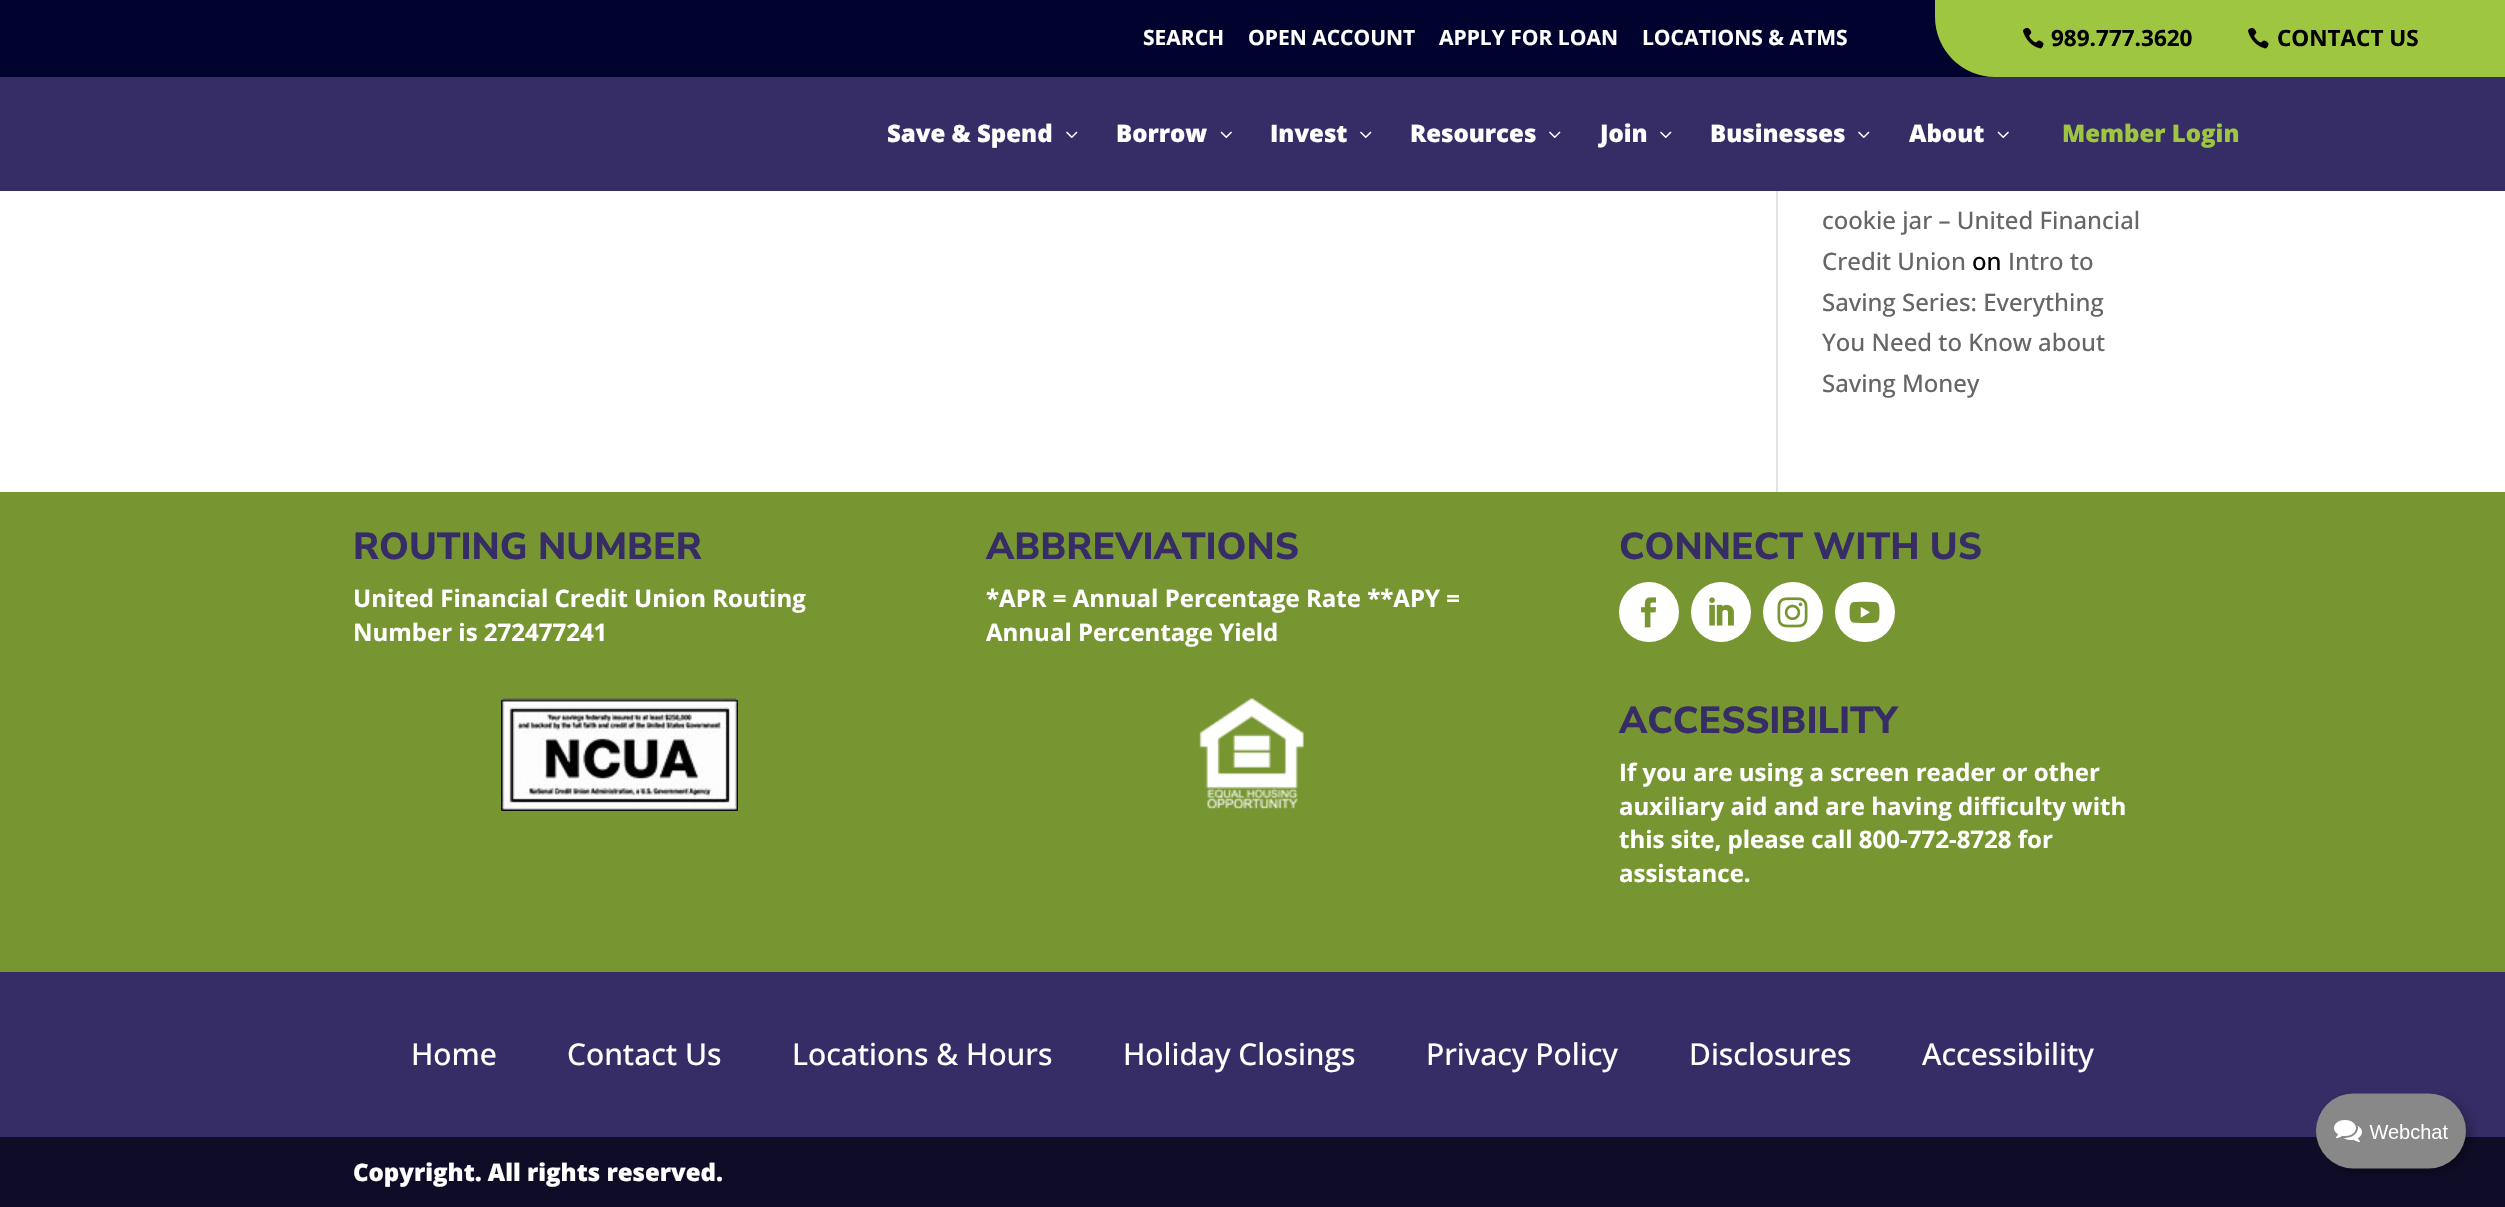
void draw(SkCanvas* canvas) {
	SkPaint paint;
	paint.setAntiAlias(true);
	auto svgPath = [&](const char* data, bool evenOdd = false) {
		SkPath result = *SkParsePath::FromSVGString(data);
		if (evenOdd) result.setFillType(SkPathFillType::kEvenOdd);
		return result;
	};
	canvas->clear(0xffffffff);
	paint.setColor(0xff00032d);
	canvas->drawRect(SkRect::MakeXYWH(0, 0, 1994, 77), paint);
	SkFont f1(fontMgr->matchFamilyStyle("Open Sans", SkFontStyle::Bold()), 21);
	f1.setSubpixel(true);
	paint.setColor(0xffffffff);
	canvas->drawString("SEARCH", 1143, 45, f1, paint);
	canvas->drawString("OPEN ACCOUNT", 1248, 45, f1, paint);
	canvas->drawString("APPLY FOR LOAN", 1439, 45, f1, paint);
	canvas->drawString("LOCATIONS & ATMS", 1642, 45, f1, paint);
	paint.setColor(0xff9ec640);
	canvas->drawPath(svgPath("M1935 0H2505V77H1995C1962 77 1935 50 1935 17Z"), paint);
	canvas->drawImageRect(SkImages::DeferredFromEncodedData(SkData::MakeFromFileName("img1.png")), SkRect::MakeXYWH(2023, 27, 21, 22), SkSamplingOptions());
	SkFont f2(fontMgr->matchFamilyStyle("Open Sans", SkFontStyle::Bold()), 22.5);
	f2.setSubpixel(true);
	paint.setColor(0xff000000);
	canvas->drawString("989.777.3620", 2051, 46, f2, paint);
	canvas->drawImageRect(SkImages::DeferredFromEncodedData(SkData::MakeFromFileName("img1.png")), SkRect::MakeXYWH(2248, 27, 21, 22), SkSamplingOptions());
	canvas->drawString("CONTACT US", 2277, 46, f2, paint);
	paint.setColor(0xff362c66);
	canvas->drawRect(SkRect::MakeXYWH(0, 77, 2505, 114), paint);
	SkFont f3(fontMgr->matchFamilyStyle("Open Sans", SkFontStyle(800, SkFontStyle::kNormal_Width, SkFontStyle::kUpright_Slant)), 24);
	f3.setSubpixel(true);
	paint.setColor(0xffffffff);
	canvas->drawString("Save & Spend", 887, 142, f3, paint);
	canvas->drawImageRect(SkImages::DeferredFromEncodedData(SkData::MakeFromFileName("img2.png")), SkRect::MakeXYWH(1066, 131, 12, 7), SkSamplingOptions());
	canvas->drawString("Borrow", 1116, 142, f3, paint);
	canvas->drawImageRect(SkImages::DeferredFromEncodedData(SkData::MakeFromFileName("img3.png")), SkRect::MakeXYWH(1220, 131, 12, 7), SkSamplingOptions());
	canvas->drawString("Invest", 1270, 142, f3, paint);
	canvas->drawImageRect(SkImages::DeferredFromEncodedData(SkData::MakeFromFileName("img2.png")), SkRect::MakeXYWH(1360, 131, 12, 7), SkSamplingOptions());
	canvas->drawString("Resources", 1410, 142, f3, paint);
	canvas->drawImageRect(SkImages::DeferredFromEncodedData(SkData::MakeFromFileName("img2.png")), SkRect::MakeXYWH(1549, 131, 12, 7), SkSamplingOptions());
	canvas->drawString("Join", 1600, 142, f3, paint);
	canvas->drawImageRect(SkImages::DeferredFromEncodedData(SkData::MakeFromFileName("img2.png")), SkRect::MakeXYWH(1660, 131, 12, 7), SkSamplingOptions());
	canvas->drawString("Businesses", 1710, 142, f3, paint);
	canvas->drawImageRect(SkImages::DeferredFromEncodedData(SkData::MakeFromFileName("img2.png")), SkRect::MakeXYWH(1858, 131, 12, 7), SkSamplingOptions());
	canvas->drawString("About", 1909, 142, f3, paint);
	canvas->drawImageRect(SkImages::DeferredFromEncodedData(SkData::MakeFromFileName("img3.png")), SkRect::MakeXYWH(1997, 131, 12, 7), SkSamplingOptions());
	paint.setColor(0xff9ec640);
	canvas->drawString("Member Login", 2062, 142, f3, paint);
	paint.setColor(0xffe2e2e2);
	canvas->drawRect(SkRect::MakeXYWH(1776, 191, 2, 301), paint);
	SkFont f4(fontMgr->matchFamilyStyle("Open Sans", SkFontStyle(500, SkFontStyle::kNormal_Width, SkFontStyle::kUpright_Slant)), 24);
	f4.setSubpixel(true);
	paint.setColor(0xff666666);
	canvas->drawString("cookie jar – United Financial", 1822, 229, f4, paint);
	canvas->drawString("Credit Union", 1822, 270, f4, paint);
	paint.setColor(0xff000000);
	canvas->drawString("on", 1972, 270, f4, paint);
	paint.setColor(0xff666666);
	canvas->drawString("Intro to", 2008, 270, f4, paint);
	canvas->drawString("Saving Series: Everything", 1822, 311, f4, paint);
	canvas->drawString("You Need to Know about", 1822, 351, f4, paint);
	canvas->drawString("Saving Money", 1822, 392, f4, paint);
	paint.setColor(0xff779530);
	canvas->drawRect(SkRect::MakeXYWH(0, 492, 2505, 480), paint);
	SkFont f5(fontMgr->matchFamilyStyle("Nunito Sans", SkFontStyle(800, SkFontStyle::kNormal_Width, SkFontStyle::kUpright_Slant)), 37.5);
	f5.setSubpixel(true);
	paint.setColor(0xff362c66);
	canvas->drawString("ROUTING NUMBER", 353, 559, f5, paint);
	SkFont f6(fontMgr->matchFamilyStyle("Open Sans", SkFontStyle::Bold()), 24);
	f6.setSubpixel(true);
	paint.setColor(0xffffffff);
	canvas->drawString("United Financial Credit Union Routing", 353, 607, f6, paint);
	canvas->drawString("Number is 272477241", 353, 641, f6, paint);
	canvas->drawImageRect(SkImages::DeferredFromEncodedData(SkData::MakeFromFileName("img4.png")), SkRect::MakeXYWH(501, 698, 237, 113), SkSamplingOptions());
	paint.setColor(0xff362c66);
	canvas->drawString("ABBREVIATIONS", 986, 559, f5, paint);
	paint.setColor(0xffffffff);
	canvas->drawString("*APR = Annual Percentage Rate **APY =", 986, 607, f6, paint);
	canvas->drawString("Annual Percentage Yield", 986, 641, f6, paint);
	canvas->drawImageRect(SkImages::DeferredFromEncodedData(SkData::MakeFromFileName("img5.png")), SkRect::MakeXYWH(1199, 698, 105, 111), SkSamplingOptions());
	paint.setColor(0xff362c66);
	canvas->drawString("CONNECT WITH US", 1619, 559, f5, paint);
	paint.setColor(0xffffffff);
	canvas->drawCircle(1649, 612, 30, paint);
	canvas->drawImageRect(SkImages::DeferredFromEncodedData(SkData::MakeFromFileName("img6.png")), SkRect::MakeXYWH(1641, 597, 16, 31), SkSamplingOptions());
	canvas->drawCircle(1721, 612, 30, paint);
	canvas->drawImageRect(SkImages::DeferredFromEncodedData(SkData::MakeFromFileName("img7.png")), SkRect::MakeXYWH(1709, 597, 25, 29), SkSamplingOptions());
	canvas->drawCircle(1793, 612, 30, paint);
	canvas->drawImageRect(SkImages::DeferredFromEncodedData(SkData::MakeFromFileName("img8.png")), SkRect::MakeXYWH(1777, 597, 31, 31), SkSamplingOptions());
	canvas->drawCircle(1865, 612, 30, paint);
	canvas->drawImageRect(SkImages::DeferredFromEncodedData(SkData::MakeFromFileName("img9.png")), SkRect::MakeXYWH(1849, 601, 31, 23), SkSamplingOptions());
	paint.setColor(0xff362c66);
	canvas->drawString("ACCESSIBILITY", 1619, 733, f5, paint);
	paint.setColor(0xffffffff);
	canvas->drawString("If you are using a screen reader or other", 1619, 781, f6, paint);
	canvas->drawString("auxiliary aid and are having difficulty with", 1619, 815, f6, paint);
	canvas->drawString("this site, please call 800-772-8728 for", 1619, 848, f6, paint);
	canvas->drawString("assistance.", 1619, 882, f6, paint);
	paint.setColor(0xff362c66);
	canvas->drawRect(SkRect::MakeXYWH(0, 972, 2505, 165), paint);
	SkFont f7(fontMgr->matchFamilyStyle("Open Sans", SkFontStyle(500, SkFontStyle::kNormal_Width, SkFontStyle::kUpright_Slant)), 30);
	f7.setSubpixel(true);
	paint.setColor(0xffffffff);
	canvas->drawString("Home", 411, 1065, f7, paint);
	canvas->drawString("Contact Us", 567, 1065, f7, paint);
	canvas->drawString("Locations & Hours", 792, 1065, f7, paint);
	canvas->drawString("Holiday Closings", 1123, 1065, f7, paint);
	canvas->drawString("Privacy Policy", 1426, 1065, f7, paint);
	canvas->drawString("Disclosures", 1689, 1065, f7, paint);
	canvas->drawString("Accessibility", 1922, 1065, f7, paint);
	paint.setColor(0xff0f0c28);
	canvas->drawRect(SkRect::MakeXYWH(0, 1137, 2505, 70), paint);
	paint.setColor(0xffffffff);
	canvas->drawString("Copyright. All rights reserved.", 353, 1181, f3, paint);
	canvas->drawImageRect(SkImages::DeferredFromEncodedData(SkData::MakeFromFileName("img10.png")), SkRect::MakeXYWH(2316, 1093, 162, 84), SkSamplingOptions());
}
